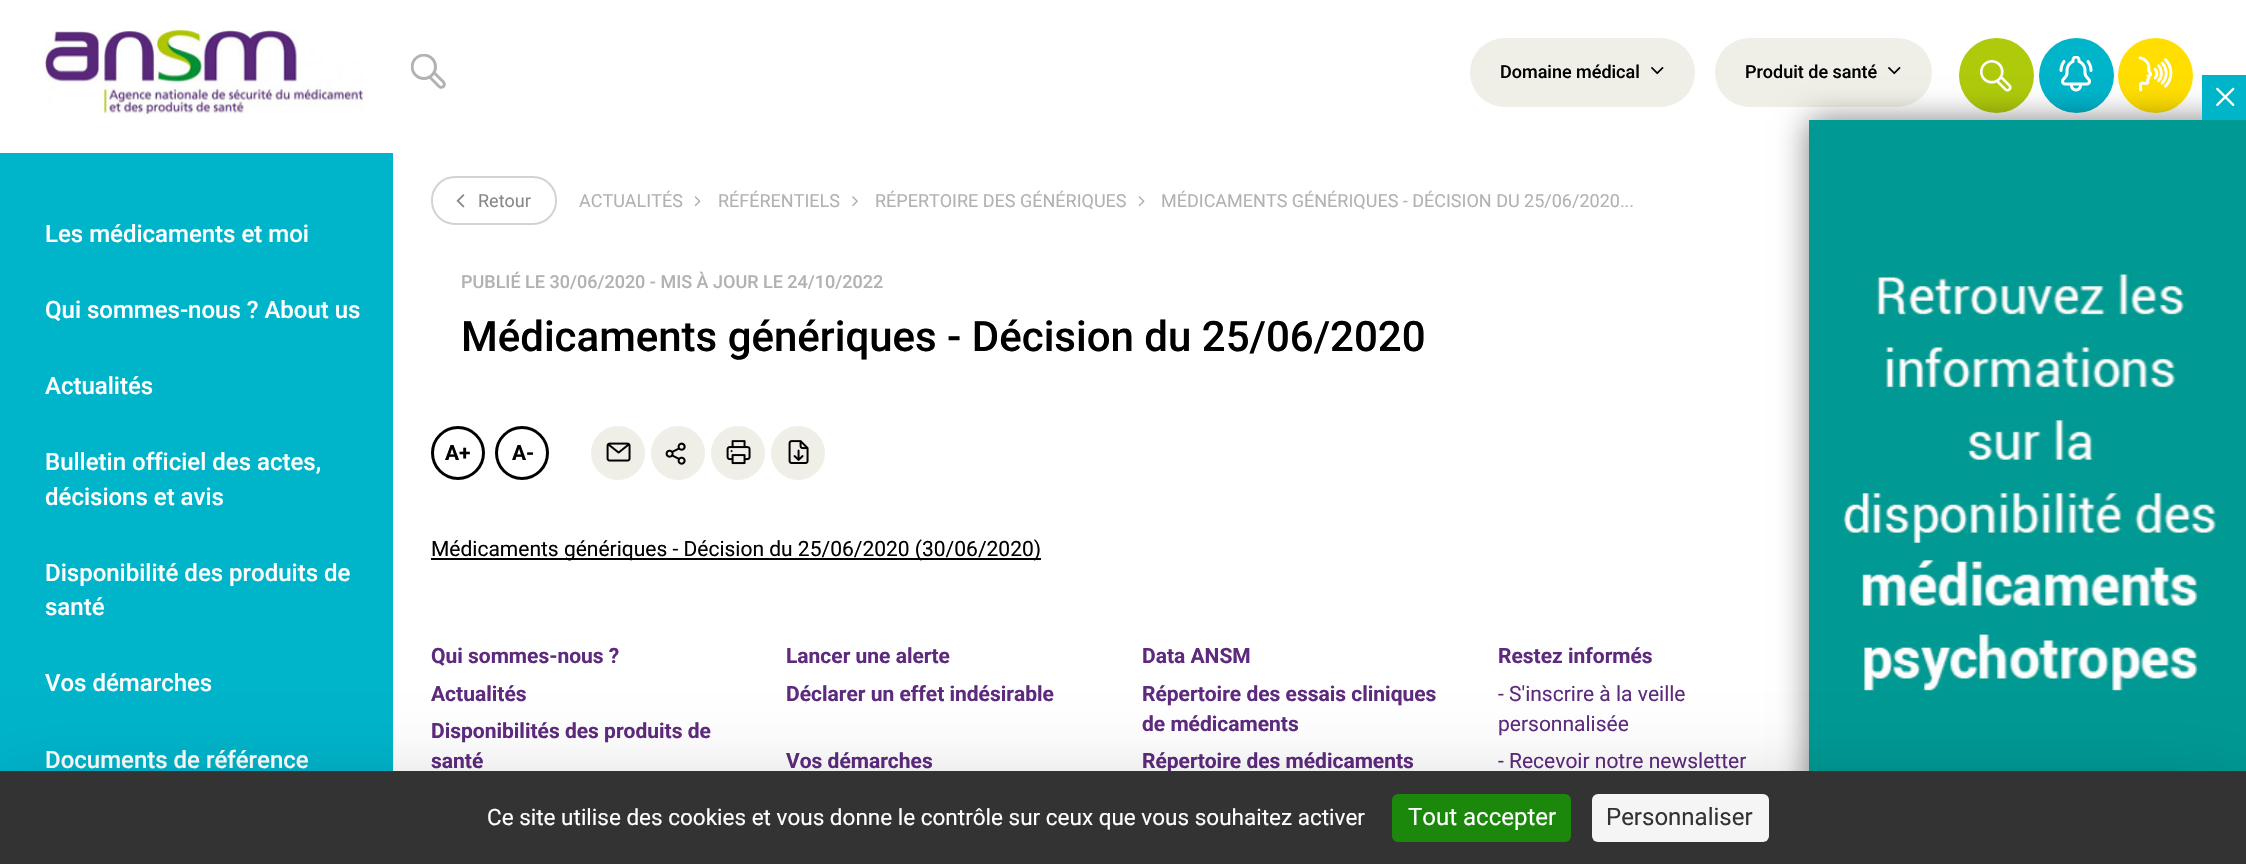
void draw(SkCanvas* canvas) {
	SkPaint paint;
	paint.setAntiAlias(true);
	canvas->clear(0xffffffff);
	canvas->drawImageRect(SkImages::DeferredFromEncodedData(SkData::MakeFromFileName("img1.png")), SkRect::MakeXYWH(45, 30, 318, 84), SkSamplingOptions());
	canvas->drawImageRect(SkImages::DeferredFromEncodedData(SkData::MakeFromFileName("img2.png")), SkRect::MakeXYWH(411, 54, 35, 35), SkSamplingOptions());
	paint.setColor(0xffefefe7);
	canvas->drawRoundRect(SkRect::MakeXYWH(1470, 38, 225, 69), 34.5, 34.5, paint);
	SkFont f1(fontMgr->matchFamilyStyle("Roboto", SkFontStyle(500, SkFontStyle::kNormal_Width, SkFontStyle::kUpright_Slant)), 18);
	f1.setSubpixel(true);
	paint.setColor(0xff000000);
	canvas->drawString("Domaine médical", 1500, 78, f1, paint);
	canvas->drawImageRect(SkImages::DeferredFromEncodedData(SkData::MakeFromFileName("img3.png")), SkRect::MakeXYWH(1651, 67, 13, 8), SkSamplingOptions());
	paint.setColor(0xffefefe7);
	canvas->drawRoundRect(SkRect::MakeXYWH(1715, 38, 217, 69), 34.5, 34.5, paint);
	paint.setColor(0xff000000);
	canvas->drawString("Produit de santé", 1745, 78, f1, paint);
	canvas->drawImageRect(SkImages::DeferredFromEncodedData(SkData::MakeFromFileName("img3.png")), SkRect::MakeXYWH(1888, 67, 13, 8), SkSamplingOptions());
	paint.setColor(0xffafca0b);
	canvas->drawCircle(1996.5, 75.5, 37.5, paint);
	canvas->drawImageRect(SkImages::DeferredFromEncodedData(SkData::MakeFromFileName("img4.png")), SkRect::MakeXYWH(1980, 60, 32, 32), SkSamplingOptions());
	paint.setColor(0xff00b4ca);
	canvas->drawCircle(2076.5, 75.5, 37.5, paint);
	canvas->drawImageRect(SkImages::DeferredFromEncodedData(SkData::MakeFromFileName("img5.png")), SkRect::MakeXYWH(2059, 56, 34, 36), SkSamplingOptions());
	paint.setColor(0xffffde00);
	canvas->drawCircle(2155.5, 75.5, 37.5, paint);
	canvas->drawImageRect(SkImages::DeferredFromEncodedData(SkData::MakeFromFileName("img6.png")), SkRect::MakeXYWH(2138, 56, 35, 36), SkSamplingOptions());
	paint.setColor(0xff00b4ca);
	canvas->drawRect(SkRect::MakeXYWH(0, 153, 393, 618), paint);
	SkFont f2(fontMgr->matchFamilyStyle("Roboto", SkFontStyle(500, SkFontStyle::kNormal_Width, SkFontStyle::kUpright_Slant)), 24);
	f2.setSubpixel(true);
	paint.setColor(0xffffffff);
	canvas->drawString("Les médicaments et moi", 45, 242, f2, paint);
	canvas->drawString("Qui sommes-nous ? About us", 45, 318, f2, paint);
	canvas->drawString("Actualités", 45, 394, f2, paint);
	canvas->drawString("Bulletin officiel des actes,", 45, 470, f2, paint);
	canvas->drawString("décisions et avis", 45, 505, f2, paint);
	canvas->drawString("Disponibilité des produits de", 45, 581, f2, paint);
	canvas->drawString("santé", 45, 615, f2, paint);
	canvas->drawString("Vos démarches", 45, 691, f2, paint);
	canvas->drawString("Documents de référence", 45, 768, f2, paint);
	paint.setStroke(true);
	paint.setStrokeWidth(2);
	paint.setColor(0xffd3d3d3);
	canvas->drawRoundRect(SkRect::MakeXYWH(432, 177, 124, 47), 23, 23, paint);
	canvas->drawImageRect(SkImages::DeferredFromEncodedData(SkData::MakeFromFileName("img7.png")), SkRect::MakeXYWH(456, 194, 9, 14), SkSamplingOptions());
	SkFont f3(fontMgr->matchFamilyStyle("Roboto", SkFontStyle::Normal()), 18);
	f3.setSubpixel(true);
	paint.setStroke(false);
	paint.setColor(0xff888888);
	canvas->drawString("Retour", 478, 207, f3, paint);
	paint.setColor(0xffb3b2b2);
	canvas->drawString("ACTUALITÉS", 579, 207, f3, paint);
	canvas->drawImageRect(SkImages::DeferredFromEncodedData(SkData::MakeFromFileName("img8.png")), SkRect::MakeXYWH(694, 196, 7, 11), SkSamplingOptions());
	canvas->drawString("RÉFÉRENTIELS", 718, 207, f3, paint);
	canvas->drawImageRect(SkImages::DeferredFromEncodedData(SkData::MakeFromFileName("img9.png")), SkRect::MakeXYWH(852, 196, 6, 11), SkSamplingOptions());
	canvas->drawString("RÉPERTOIRE DES GÉNÉRIQUES", 875, 207, f3, paint);
	canvas->drawImageRect(SkImages::DeferredFromEncodedData(SkData::MakeFromFileName("img8.png")), SkRect::MakeXYWH(1138, 196, 7, 11), SkSamplingOptions());
	canvas->drawString("MÉDICAMENTS GÉNÉRIQUES - DÉCISION DU 25/06/2020...", 1161, 207, f3, paint);
	canvas->drawString("PUBLIÉ LE 30/06/2020 - MIS À JOUR LE 24/10/2022", 461, 288, f1, paint);
	SkFont f4(fontMgr->matchFamilyStyle("Roboto", SkFontStyle(500, SkFontStyle::kNormal_Width, SkFontStyle::kUpright_Slant)), 42);
	f4.setSubpixel(true);
	paint.setColor(0xff000000);
	canvas->drawString("Médicaments génériques - Décision du 25/06/2020", 461, 351, f4, paint);
	paint.setStroke(true);
	paint.setStrokeWidth(3);
	canvas->drawCircle(458, 453, 25.5, paint);
	SkFont f5(fontMgr->matchFamilyStyle("Roboto", SkFontStyle::Bold()), 21);
	f5.setSubpixel(true);
	paint.setStroke(false);
	canvas->drawString("A+", 445, 460, f5, paint);
	paint.setStroke(true);
	canvas->drawCircle(522, 453, 25.5, paint);
	paint.setStroke(false);
	canvas->drawString("A-", 512, 460, f5, paint);
	paint.setColor(0xffefefe7);
	canvas->drawCircle(618, 453, 27, paint);
	canvas->drawImageRect(SkImages::DeferredFromEncodedData(SkData::MakeFromFileName("img10.png")), SkRect::MakeXYWH(606, 442, 25, 20), SkSamplingOptions());
	canvas->drawCircle(678, 453, 27, paint);
	canvas->drawImageRect(SkImages::DeferredFromEncodedData(SkData::MakeFromFileName("img11.png")), SkRect::MakeXYWH(665, 442, 21, 23), SkSamplingOptions());
	canvas->drawCircle(738, 453, 27, paint);
	canvas->drawImageRect(SkImages::DeferredFromEncodedData(SkData::MakeFromFileName("img12.png")), SkRect::MakeXYWH(726, 440, 25, 25), SkSamplingOptions());
	canvas->drawCircle(798, 453, 27, paint);
	canvas->drawImageRect(SkImages::DeferredFromEncodedData(SkData::MakeFromFileName("img13.png")), SkRect::MakeXYWH(788, 440, 21, 24), SkSamplingOptions());
	paint.setColor(0xff000000);
	canvas->drawRect(SkRect::MakeXYWH(431, 558, 610, 2), paint);
	SkFont f6(fontMgr->matchFamilyStyle("Roboto", SkFontStyle::Normal()), 21);
	f6.setSubpixel(true);
	canvas->drawString("Médicaments génériques - Décision du 25/06/2020 (30/06/2020)", 431, 556, f6, paint);
	paint.setColor(0xff5e2a7e);
	canvas->drawString("Qui sommes-nous ?", 431, 663, f5, paint);
	canvas->drawString("Actualités", 431, 701, f5, paint);
	canvas->drawString("Disponibilités des produits de", 431, 738, f5, paint);
	canvas->drawString("santé", 431, 768, f5, paint);
	canvas->drawString("Lancer une alerte", 786, 663, f5, paint);
	canvas->drawString("Déclarer un effet indésirable", 786, 701, f5, paint);
	canvas->drawString("Vos démarches", 786, 768, f5, paint);
	canvas->drawString("Data ANSM", 1142, 663, f5, paint);
	canvas->drawString("Répertoire des essais cliniques", 1142, 701, f5, paint);
	canvas->drawString("de médicaments", 1142, 731, f5, paint);
	canvas->drawString("Répertoire des médicaments", 1142, 768, f5, paint);
	canvas->drawString("Restez informés", 1498, 663, f5, paint);
	canvas->drawString("- S'inscrire à la veille", 1498, 701, f6, paint);
	canvas->drawString("personnalisée", 1498, 731, f6, paint);
	canvas->drawString("- Recevoir notre newsletter", 1498, 768, f6, paint);
	paint.setColor(0x80000000);
	paint.setMaskFilter(SkMaskFilter::MakeBlur(kNormal_SkBlurStyle, 15));
	canvas->drawRect(SkRect::MakeXYWH(1809, 120, 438, 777), paint);
	paint.setMaskFilter(nullptr);
	canvas->drawImageRect(SkImages::DeferredFromEncodedData(SkData::MakeFromFileName("img14.png")), SkRect::MakeXYWH(1809, 120, 437, 651), SkSamplingOptions());
	paint.setColor(0xff00b4ca);
	canvas->drawRect(SkRect::MakeXYWH(2202, 75, 44, 45), paint);
	canvas->drawImageRect(SkImages::DeferredFromEncodedData(SkData::MakeFromFileName("img15.png")), SkRect::MakeXYWH(2216, 87, 19, 19), SkSamplingOptions());
	paint.setColor(0x40000000);
	paint.setMaskFilter(SkMaskFilter::MakeBlur(kNormal_SkBlurStyle, 45));
	canvas->drawRect(SkRect::MakeXYWH(0, 801, 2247, 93), paint);
	paint.setMaskFilter(nullptr);
	paint.setColor(0xff333333);
	canvas->drawRect(SkRect::MakeXYWH(0, 771, 2246, 93), paint);
	SkFont f7(fontMgr->matchFamilyStyle("Roboto", SkFontStyle::Normal()), 22.5);
	f7.setSubpixel(true);
	paint.setColor(0xffffffff);
	canvas->drawString("Ce site utilise des cookies et vous donne le contrôle sur ceux que vous souhaitez activer", 487, 825, f7, paint);
	paint.setColor(0xff1b870b);
	canvas->drawRoundRect(SkRect::MakeXYWH(1392, 794, 179, 48), 6, 6, paint);
	SkFont f8(fontMgr->matchFamilyStyle("Roboto", SkFontStyle::Normal()), 24);
	f8.setSubpixel(true);
	paint.setColor(0xffffffff);
	canvas->drawString("Tout accepter", 1408, 825, f8, paint);
	paint.setColor(0xfff5f5f5);
	canvas->drawRoundRect(SkRect::MakeXYWH(1592, 794, 177, 48), 6, 6, paint);
	paint.setColor(0xff333333);
	canvas->drawString("Personnaliser", 1606, 825, f8, paint);
}
